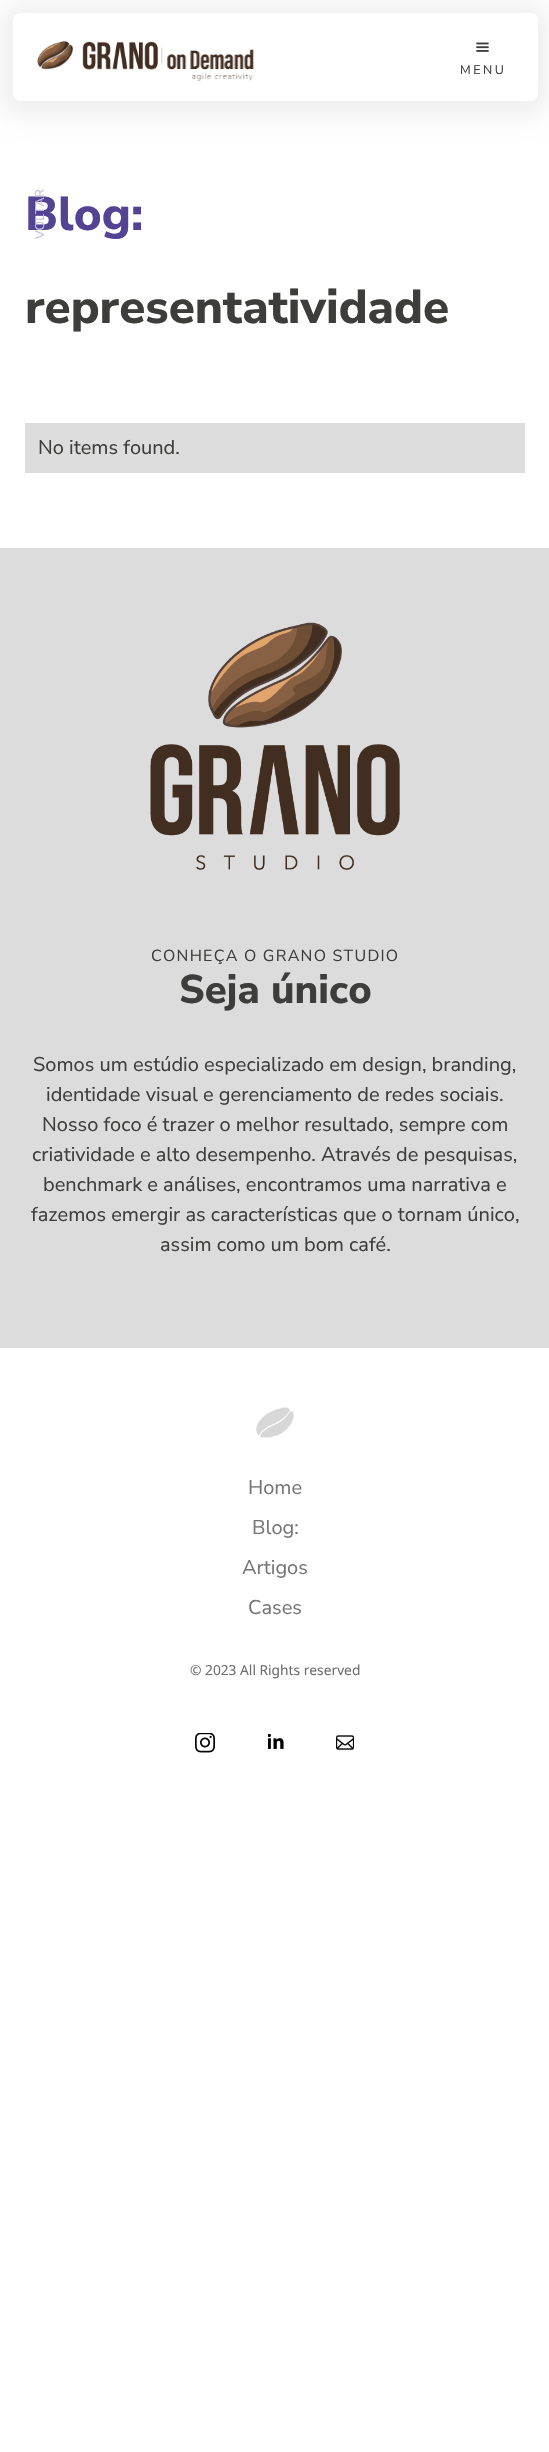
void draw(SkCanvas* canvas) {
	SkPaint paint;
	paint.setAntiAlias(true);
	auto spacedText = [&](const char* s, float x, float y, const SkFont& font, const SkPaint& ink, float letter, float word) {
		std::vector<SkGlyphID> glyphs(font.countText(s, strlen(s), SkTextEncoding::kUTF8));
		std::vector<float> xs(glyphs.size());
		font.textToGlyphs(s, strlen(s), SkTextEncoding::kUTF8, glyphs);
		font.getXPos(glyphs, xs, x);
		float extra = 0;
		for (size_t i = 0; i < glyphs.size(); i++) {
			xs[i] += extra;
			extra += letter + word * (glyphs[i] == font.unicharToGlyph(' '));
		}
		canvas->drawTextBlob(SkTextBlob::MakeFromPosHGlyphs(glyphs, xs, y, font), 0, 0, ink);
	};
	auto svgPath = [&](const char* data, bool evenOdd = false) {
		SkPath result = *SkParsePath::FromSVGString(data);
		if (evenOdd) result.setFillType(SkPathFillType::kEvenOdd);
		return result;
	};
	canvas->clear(0xffffffff);
	canvas->save();
	canvas->clipPath(svgPath("M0 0H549V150H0ZM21 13H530C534.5 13 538 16.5 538 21V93C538 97.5 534.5 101 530 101H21C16.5 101 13 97.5 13 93V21C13 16.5 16.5 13 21 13Z", true), true);
	paint.setColor(0x0f000000);
	paint.setMaskFilter(SkMaskFilter::MakeBlur(kNormal_SkBlurStyle, 11));
	canvas->drawRoundRect(SkRect::MakeXYWH(0, 3, 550, 113), 20, 20, paint);
	paint.setMaskFilter(nullptr);
	canvas->restore();
	paint.setColor(0xd6ffffff);
	canvas->drawRoundRect(SkRect::MakeXYWH(13, 13, 525, 88), 8, 8, paint);
	canvas->drawImageRect(SkImages::DeferredFromEncodedData(SkData::MakeFromFileName("img1.png")), SkRect::MakeXYWH(37, 40, 121, 30), SkSamplingOptions());
	canvas->drawImageRect(SkImages::DeferredFromEncodedData(SkData::MakeFromFileName("img2.png")), SkRect::MakeXYWH(161, 47, 93, 34), SkSamplingOptions());
	canvas->drawImageRect(SkImages::DeferredFromEncodedData(SkData::MakeFromFileName("img3.png")), SkRect::MakeXYWH(476, 42, 13, 10), SkSamplingOptions());
	SkFont f1(fontMgr->matchFamilyStyle("Nunito Sans", SkFontStyle::Normal()), 12.5);
	f1.setSubpixel(true);
	paint.setColor(0xff3d3d3b);
	spacedText("MENU", 460, 74, f1, paint, 2.5, 0);
	SkFont f2(fontMgr->matchFamilyStyle("Nunito Sans", SkFontStyle(800, SkFontStyle::kNormal_Width, SkFontStyle::kUpright_Slant)), 47.5);
	f2.setSubpixel(true);
	paint.setColor(0xff544293);
	canvas->drawString("Blog:", 25, 230, f2, paint);
	paint.setColor(0xffc4beda);
	canvas->save();
	canvas->rotate(-90, 44, 239);
	canvas->drawString("VOLTAR", 44, 239, f1, paint);
	canvas->restore();
	paint.setColor(0xff3d3d3b);
	canvas->drawString("representatividade", 25, 323, f2, paint);
	paint.setColor(0xffdddddd);
	canvas->drawRect(SkRect::MakeXYWH(25, 423, 500, 50), paint);
	SkFont f3(fontMgr->matchFamilyStyle("Nunito Sans", SkFontStyle::Normal()), 20);
	f3.setSubpixel(true);
	paint.setColor(0xff3d3d3b);
	canvas->drawString("No items found.", 38, 454, f3, paint);
	paint.setColor(0xffdddcdd);
	canvas->drawRect(SkRect::MakeXYWH(0, 548, 549, 800), paint);
	canvas->drawImageRect(SkImages::DeferredFromEncodedData(SkData::MakeFromFileName("img4.png")), SkRect::MakeXYWH(150, 622, 250, 248), SkSamplingOptions());
	SkFont f4(fontMgr->matchFamilyStyle("Nunito Sans", SkFontStyle::Normal()), 16);
	f4.setSubpixel(true);
	paint.setColor(0xff3d3d3b);
	spacedText("CONHEÇA O GRANO STUDIO", 151, 961, f4, paint, 1.25, 0);
	SkFont f5(fontMgr->matchFamilyStyle("Nunito Sans", SkFontStyle(800, SkFontStyle::kNormal_Width, SkFontStyle::kUpright_Slant)), 40);
	f5.setSubpixel(true);
	canvas->drawString("Seja único", 179, 1003, f5, paint);
	canvas->drawString("Somos um estúdio especializado em design, branding,", 33, 1071, f3, paint);
	canvas->drawString("identidade visual e gerenciamento de redes sociais.", 46, 1101, f3, paint);
	canvas->drawString("Nosso foco é trazer o melhor resultado, sempre com", 42, 1131, f3, paint);
	canvas->drawString("criatividade e alto desempenho. Através de pesquisas,", 32, 1161, f3, paint);
	canvas->drawString("benchmark e análises, encontramos uma narrativa e", 43, 1191, f3, paint);
	canvas->drawString("fazemos emergir as características que o tornam único,", 31, 1221, f3, paint);
	canvas->drawString("assim como um bom café.", 160, 1251, f3, paint);
	canvas->drawImageRect(SkImages::DeferredFromEncodedData(SkData::MakeFromFileName("img5.png")), SkRect::MakeXYWH(256, 1407, 38, 31), SkSamplingOptions());
	paint.setColor(0xff757575);
	canvas->drawString("Home", 248, 1494, f3, paint);
	canvas->drawString("Blog:", 252, 1534, f3, paint);
	canvas->drawString("Artigos", 242, 1574, f3, paint);
	canvas->drawString("Cases", 248, 1614, f3, paint);
	SkFont f6(fontMgr->matchFamilyStyle("Noto Sans", SkFontStyle::Normal()), 13.75);
	f6.setSubpixel(true);
	paint.setColor(0xff6e6e6e);
	canvas->drawString("© 2023 All Rights reserved", 190, 1675, f6, paint);
	canvas->drawImageRect(SkImages::DeferredFromEncodedData(SkData::MakeFromFileName("img6.png")), SkRect::MakeXYWH(195, 1733, 20, 20), SkSamplingOptions());
	canvas->drawImageRect(SkImages::DeferredFromEncodedData(SkData::MakeFromFileName("img7.png")), SkRect::MakeXYWH(268, 1734, 16, 15), SkSamplingOptions());
	canvas->drawImageRect(SkImages::DeferredFromEncodedData(SkData::MakeFromFileName("img8.png")), SkRect::MakeXYWH(336, 1735, 18, 16), SkSamplingOptions());
}
